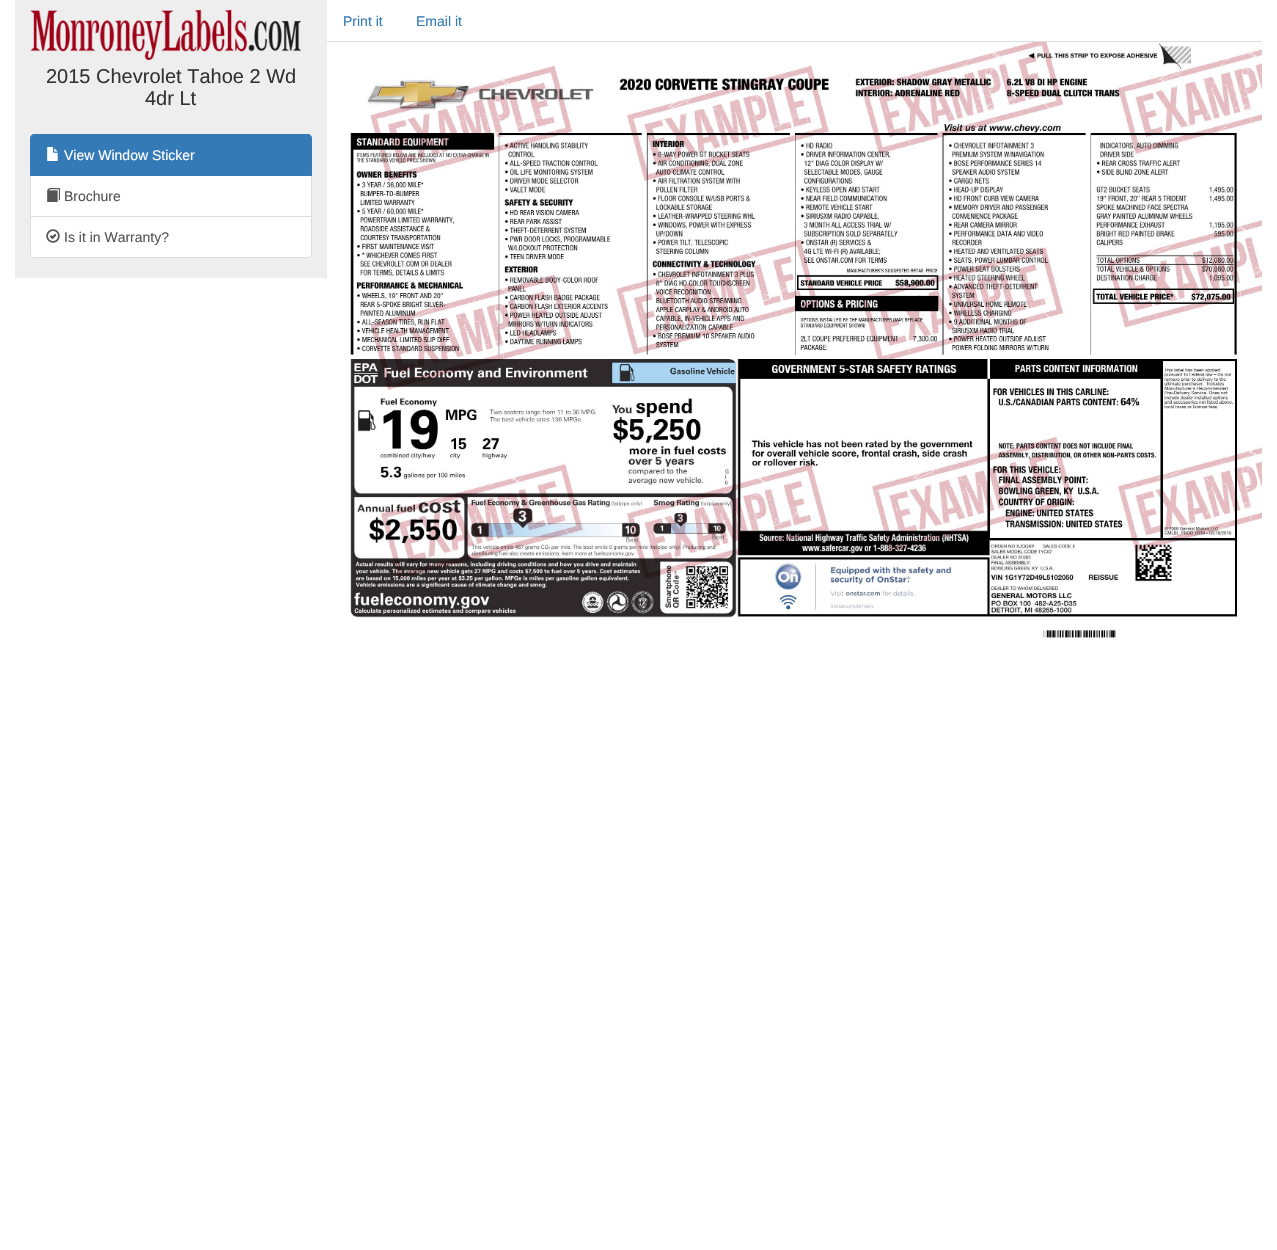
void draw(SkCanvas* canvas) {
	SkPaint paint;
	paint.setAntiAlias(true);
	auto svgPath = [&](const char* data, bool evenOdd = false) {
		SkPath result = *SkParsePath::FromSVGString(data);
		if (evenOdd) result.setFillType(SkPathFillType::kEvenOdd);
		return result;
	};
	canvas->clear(0xffffffff);
	paint.setColor(0xffdddddd);
	canvas->drawRect(SkRect::MakeXYWH(327, 41, 935, 1), paint);
	SkFont f1(fontMgr->matchFamilyStyle("Liberation Sans", SkFontStyle::Normal()), 14);
	f1.setSubpixel(true);
	paint.setColor(0xff337ab7);
	canvas->drawString("Print it", 343, 26, f1, paint);
	canvas->drawString("Email it", 416, 26, f1, paint);
	canvas->drawImageRect(SkImages::DeferredFromEncodedData(SkData::MakeFromFileName("img1.png")), SkRect::MakeXYWH(350, 42, 912, 596), SkSamplingOptions());
	paint.setColor(0xffeeeeee);
	canvas->drawRect(SkRect::MakeXYWH(15, 0, 312, 278), paint);
	canvas->drawImageRect(SkImages::DeferredFromEncodedData(SkData::MakeFromFileName("img2.png")), SkRect::MakeXYWH(30, 10, 272, 50), SkSamplingOptions());
	SkFont f2(fontMgr->matchFamilyStyle("Liberation Sans", SkFontStyle::Normal()), 20);
	f2.setSubpixel(true);
	paint.setColor(0xff333333);
	canvas->drawString("2015 Chevrolet Tahoe 2 Wd", 46, 83, f2, paint);
	canvas->drawString("4dr Lt", 145, 105, f2, paint);
	paint.setColor(0xffffffff);
	canvas->drawRect(SkRect::MakeXYWH(30.5, 175.5, 281, 41), paint);
	paint.setStroke(true);
	paint.setStrokeWidth(1);
	paint.setColor(0xffdddddd);
	canvas->drawRect(SkRect::MakeXYWH(30.5, 175.5, 281, 41), paint);
	paint.setStroke(false);
	paint.setColor(0xff337ab7);
	canvas->drawPath(svgPath("M34 134.5H308C310 134.5 311.5 136 311.5 138V175.5H30.5V138C30.5 136 32 134.5 34 134.5Z"), paint);
	paint.setStroke(true);
	canvas->drawPath(svgPath("M34 134.5H308C310 134.5 311.5 136 311.5 138V175.5H30.5V138C30.5 136 32 134.5 34 134.5Z"), paint);
	canvas->drawImageRect(SkImages::DeferredFromEncodedData(SkData::MakeFromFileName("img3.png")), SkRect::MakeXYWH(47, 147, 11, 14), SkSamplingOptions());
	paint.setStroke(false);
	paint.setColor(0xffffffff);
	canvas->drawString("View Window Sticker", 64, 160, f1, paint);
	canvas->drawImageRect(SkImages::DeferredFromEncodedData(SkData::MakeFromFileName("img4.png")), SkRect::MakeXYWH(47, 188, 13, 14), SkSamplingOptions());
	paint.setColor(0xff555555);
	canvas->drawString("Brochure", 64, 201, f1, paint);
	paint.setColor(0xffffffff);
	canvas->drawPath(svgPath("M30.5 216.5H311.5V254C311.5 256 310 257.5 308 257.5H34C32 257.5 30.5 256 30.5 254Z"), paint);
	paint.setStroke(true);
	paint.setColor(0xffdddddd);
	canvas->drawPath(svgPath("M30.5 216.5H311.5V254C311.5 256 310 257.5 308 257.5H34C32 257.5 30.5 256 30.5 254Z"), paint);
	canvas->drawImageRect(SkImages::DeferredFromEncodedData(SkData::MakeFromFileName("img5.png")), SkRect::MakeXYWH(46, 229, 14, 14), SkSamplingOptions());
	paint.setStroke(false);
	paint.setColor(0xff555555);
	canvas->drawString("Is it in Warranty?", 64, 242, f1, paint);
}
